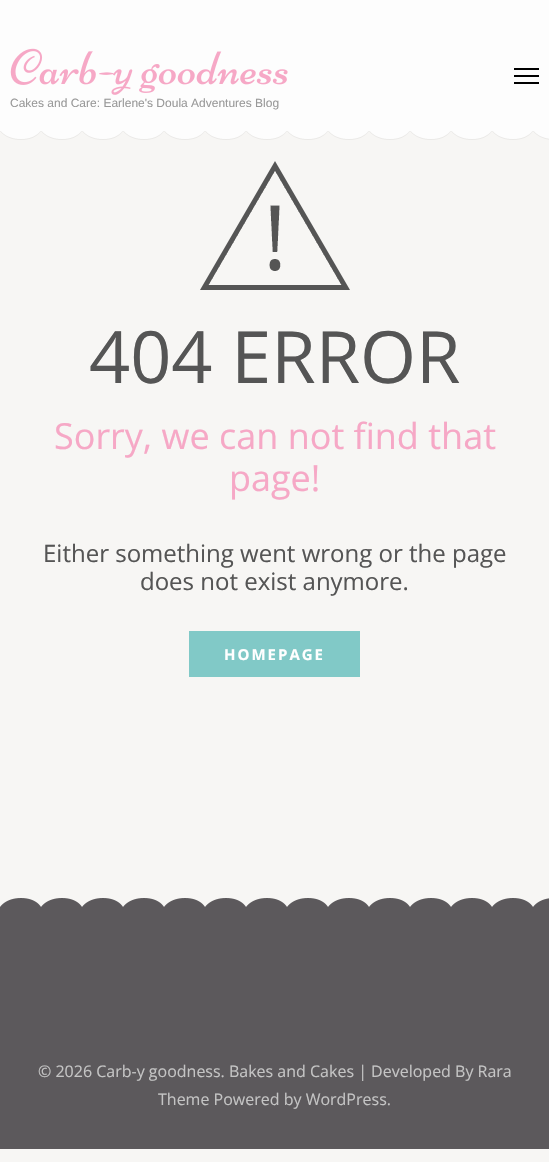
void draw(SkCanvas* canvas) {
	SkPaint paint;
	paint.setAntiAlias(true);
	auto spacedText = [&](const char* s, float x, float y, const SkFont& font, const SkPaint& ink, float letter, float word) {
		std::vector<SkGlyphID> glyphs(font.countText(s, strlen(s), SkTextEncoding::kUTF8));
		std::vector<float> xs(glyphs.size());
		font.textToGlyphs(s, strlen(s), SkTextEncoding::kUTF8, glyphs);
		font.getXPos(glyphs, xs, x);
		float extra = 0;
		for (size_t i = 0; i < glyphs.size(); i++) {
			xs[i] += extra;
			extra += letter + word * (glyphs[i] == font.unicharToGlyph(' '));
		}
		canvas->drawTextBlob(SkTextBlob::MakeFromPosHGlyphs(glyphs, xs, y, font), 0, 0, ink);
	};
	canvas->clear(0xfff7f6f4);
	paint.setColor(0xfffdfdfd);
	canvas->drawRect(SkRect::MakeXYWH(0, 0, 549, 131), paint);
	paint.setColor(0xff000000);
	canvas->drawRect(SkRect::MakeXYWH(514, 68, 25, 2), paint);
	canvas->drawRect(SkRect::MakeXYWH(514, 75, 25, 2), paint);
	canvas->drawRect(SkRect::MakeXYWH(514, 82, 25, 2), paint);
	canvas->drawImageRect(SkImages::DeferredFromEncodedData(SkData::MakeFromFileName("img1.png")), SkRect::MakeXYWH(10, 48, 278, 47), SkSamplingOptions());
	SkFont f1(fontMgr->matchFamilyStyle("Liberation Sans", SkFontStyle::Normal()), 12);
	f1.setSubpixel(true);
	paint.setColor(0xff999999);
	canvas->drawString("Cakes and Care: Earlene's Doula Adventures Blog", 10, 107, f1, paint);
	canvas->drawImageRect(SkImages::DeferredFromEncodedData(SkData::MakeFromFileName("img2.png")), SkRect::MakeXYWH(0, 131, 549, 9), SkSamplingOptions());
	canvas->drawImageRect(SkImages::DeferredFromEncodedData(SkData::MakeFromFileName("img3.png")), SkRect::MakeXYWH(200, 161, 150, 129), SkSamplingOptions());
	SkFont f2(fontMgr->matchFamilyStyle("Open Sans", SkFontStyle::Normal()), 72);
	f2.setSubpixel(true);
	paint.setColor(0xff555555);
	canvas->drawString("404 ERROR", 89, 383, f2, paint);
	SkFont f3(fontMgr->matchFamilyStyle("Open Sans", SkFontStyle::Normal()), 36);
	f3.setSubpixel(true);
	paint.setColor(0xfff6a8c6);
	canvas->drawString("Sorry, we can not find that", 54, 449, f3, paint);
	canvas->drawString("page!", 229, 491, f3, paint);
	SkFont f4(fontMgr->matchFamilyStyle("Open Sans", SkFontStyle::Normal()), 24);
	f4.setSubpixel(true);
	paint.setColor(0xff555555);
	canvas->drawString("Either something went wrong or the page", 43, 562, f4, paint);
	canvas->drawString("does not exist anymore.", 140, 590, f4, paint);
	paint.setColor(0xff81c9c7);
	canvas->drawRect(SkRect::MakeXYWH(189, 631, 171, 46), paint);
	SkFont f5(fontMgr->matchFamilyStyle("Open Sans", SkFontStyle::Bold()), 15);
	f5.setSubpixel(true);
	paint.setColor(0xffffffff);
	spacedText("HOMEPAGE", 224, 660, f5, paint, 2, 0);
	paint.setColor(0xff5c595c);
	canvas->drawRect(SkRect::MakeXYWH(0, 907, 549, 242), paint);
	canvas->drawImageRect(SkImages::DeferredFromEncodedData(SkData::MakeFromFileName("img4.png")), SkRect::MakeXYWH(0, 898, 549, 9), SkSamplingOptions());
	SkFont f6(fontMgr->matchFamilyStyle("Open Sans", SkFontStyle::Normal()), 16);
	f6.setSubpixel(true);
	paint.setColor(0xffc4c4c4);
	canvas->drawString("© 2026 Carb-y goodness. Bakes and Cakes | Developed By Rara", 38, 1077, f6, paint);
	canvas->drawString("Theme Powered by WordPress.", 158, 1105, f6, paint);
}
